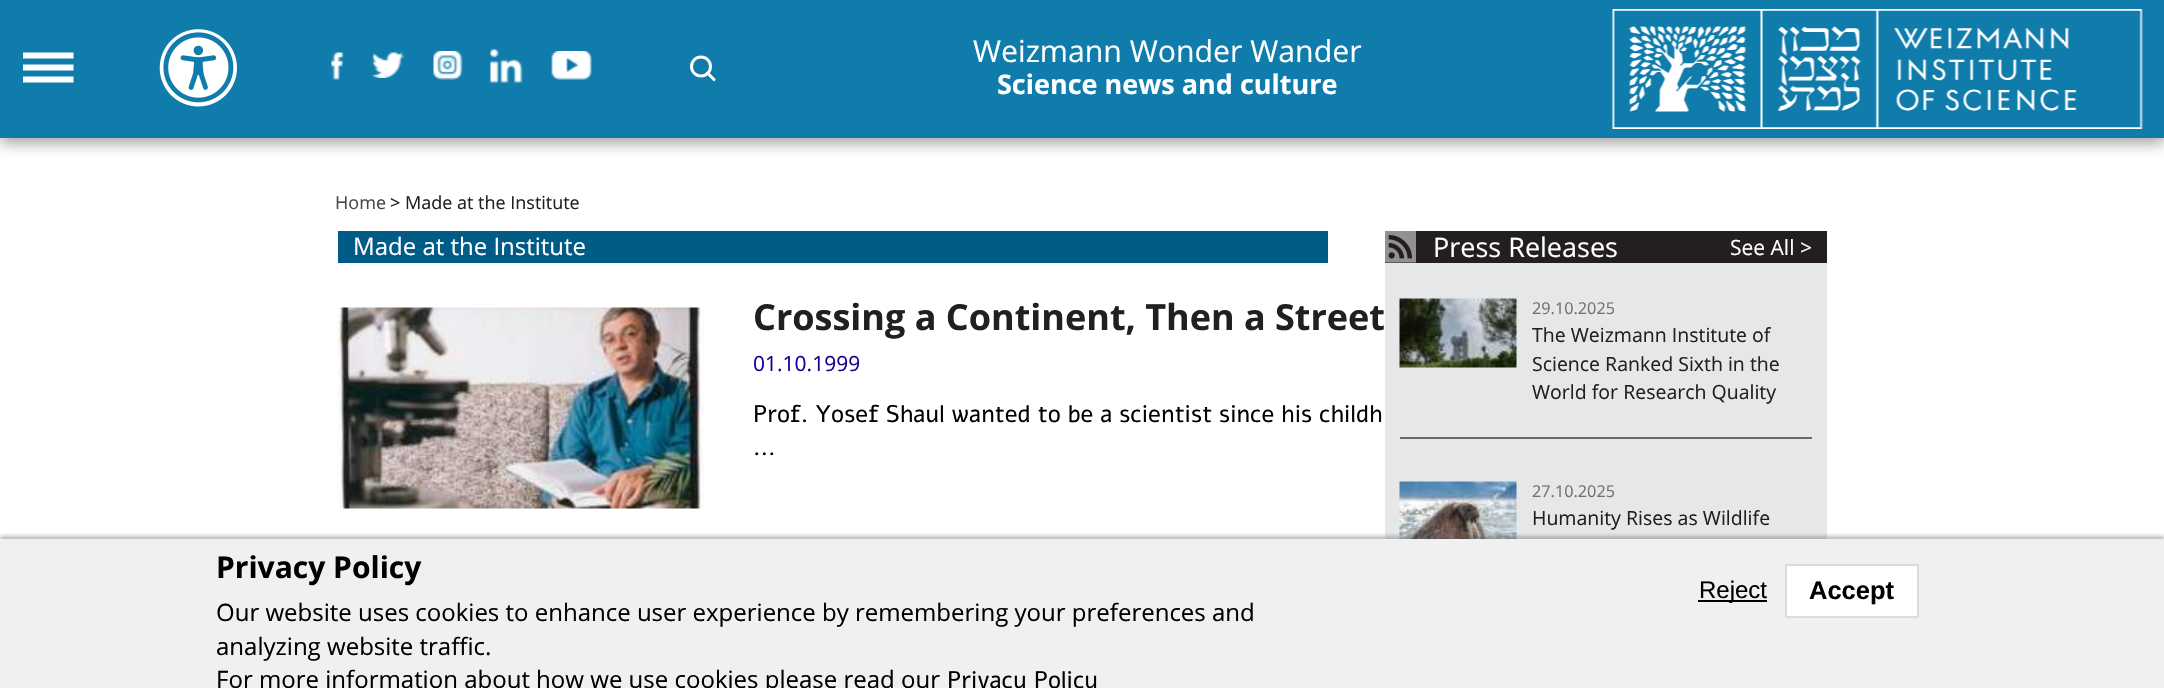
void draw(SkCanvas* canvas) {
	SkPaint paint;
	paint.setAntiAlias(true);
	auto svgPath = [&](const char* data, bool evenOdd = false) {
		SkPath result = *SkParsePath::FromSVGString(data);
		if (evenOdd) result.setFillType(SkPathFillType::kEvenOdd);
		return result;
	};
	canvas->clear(0xffffffff);
	paint.setColor(0x803f3f3f);
	paint.setMaskFilter(SkMaskFilter::MakeBlur(kNormal_SkBlurStyle, 7));
	canvas->drawRect(SkRect::MakeXYWH(0, 5, 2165, 138), paint);
	paint.setMaskFilter(nullptr);
	paint.setColor(0xff107cab);
	canvas->drawRect(SkRect::MakeXYWH(0, 0, 2164, 138), paint);
	canvas->drawImageRect(SkImages::DeferredFromEncodedData(SkData::MakeFromFileName("img1.png")), SkRect::MakeXYWH(23, 52, 51, 31), SkSamplingOptions());
	canvas->drawImageRect(SkImages::DeferredFromEncodedData(SkData::MakeFromFileName("img2.png")), SkRect::MakeXYWH(159, 29, 78, 78), SkSamplingOptions());
	canvas->drawImageRect(SkImages::DeferredFromEncodedData(SkData::MakeFromFileName("img3.png")), SkRect::MakeXYWH(331, 52, 13, 28), SkSamplingOptions());
	canvas->drawImageRect(SkImages::DeferredFromEncodedData(SkData::MakeFromFileName("img4.png")), SkRect::MakeXYWH(371, 52, 33, 26), SkSamplingOptions());
	canvas->drawImageRect(SkImages::DeferredFromEncodedData(SkData::MakeFromFileName("img5.png")), SkRect::MakeXYWH(433, 51, 30, 29), SkSamplingOptions());
	canvas->drawImageRect(SkImages::DeferredFromEncodedData(SkData::MakeFromFileName("img6.png")), SkRect::MakeXYWH(490, 49, 33, 34), SkSamplingOptions());
	canvas->drawImageRect(SkImages::DeferredFromEncodedData(SkData::MakeFromFileName("img7.png")), SkRect::MakeXYWH(551, 51, 41, 29), SkSamplingOptions());
	paint.setStroke(true);
	paint.setStrokeWidth(3);
	paint.setColor(0xffffffff);
	canvas->drawCircle(701, 66.5, 9.5, paint);
	paint.setStrokeCap(SkPaint::kRound_Cap);
	canvas->drawPath(svgPath("M707.5 73L714 79.5"), paint);
	SkFont f1(fontMgr->matchFamilyStyle("Open Sans", SkFontStyle::Normal()), 30.25);
	f1.setSubpixel(true);
	paint.setStroke(false);
	canvas->drawString("Weizmann Wonder Wander", 973, 62, f1, paint);
	SkFont f2(fontMgr->matchFamilyStyle("Open Sans", SkFontStyle::Bold()), 27);
	f2.setSubpixel(true);
	canvas->drawString("Science news and culture", 997, 94, f2, paint);
	canvas->drawImageRect(SkImages::DeferredFromEncodedData(SkData::MakeFromFileName("img8.png")), SkRect::MakeXYWH(1612, 9, 531, 120), SkSamplingOptions());
	SkFont f3(fontMgr->matchFamilyStyle("Open Sans", SkFontStyle::Normal()), 18);
	f3.setSubpixel(true);
	paint.setColor(0xff474748);
	canvas->drawString("Home", 335, 209, f3, paint);
	paint.setColor(0xff231f20);
	canvas->drawString("> Made at the Institute", 390, 209, f3, paint);
	paint.setColor(0xff005b86);
	canvas->drawRect(SkRect::MakeXYWH(338, 231, 990, 32), paint);
	SkFont f4(fontMgr->matchFamilyStyle("Open Sans", SkFontStyle::Normal()), 24);
	f4.setSubpixel(true);
	paint.setColor(0xffffffff);
	canvas->drawString("Made at the Institute", 353, 255, f4, paint);
	canvas->drawImageRect(SkImages::DeferredFromEncodedData(SkData::MakeFromFileName("img9.png")), SkRect::MakeXYWH(337, 307, 367, 202), SkSamplingOptions());
	SkFont f5(fontMgr->matchFamilyStyle("Open Sans", SkFontStyle::Bold()), 36);
	f5.setSubpixel(true);
	paint.setColor(0xff231f20);
	canvas->drawString("Crossing a Continent, Then a Street", 753, 330, f5, paint);
	SkFont f6(fontMgr->matchFamilyStyle("Open Sans", SkFontStyle::Normal()), 21);
	f6.setSubpixel(true);
	paint.setColor(0xff130098);
	canvas->drawString("01.10.1999", 753, 371, f6, paint);
	SkFont f7(fontMgr->matchFamilyStyle("Alef", SkFontStyle::Normal()), 24);
	f7.setSubpixel(true);
	paint.setColor(0xff000000);
	canvas->drawString("Prof. Yosef Shaul wanted to be a scientist since his childh", 753, 422, f7, paint);
	canvas->drawString("...", 753, 455, f7, paint);
	paint.setColor(0xffe6e7e8);
	canvas->drawRect(SkRect::MakeXYWH(1385, 263, 442, 276), paint);
	paint.setColor(0xff231f20);
	canvas->drawRect(SkRect::MakeXYWH(1385, 231, 442, 32), paint);
	SkFont f8(fontMgr->matchFamilyStyle("Open Sans", SkFontStyle::Normal()), 27);
	f8.setSubpixel(true);
	paint.setColor(0xffffffff);
	canvas->drawString("Press Releases", 1433, 257, f8, paint);
	canvas->drawImageRect(SkImages::DeferredFromEncodedData(SkData::MakeFromFileName("img10.png")), SkRect::MakeXYWH(1385, 231, 31, 32), SkSamplingOptions());
	canvas->drawString("See All >", 1730, 255, f6, paint);
	paint.setColor(0xff6a6768);
	canvas->drawRect(SkRect::MakeXYWH(1400, 437, 412, 2), paint);
	canvas->drawImageRect(SkImages::DeferredFromEncodedData(SkData::MakeFromFileName("img11.png")), SkRect::MakeXYWH(1399, 298, 118, 70), SkSamplingOptions());
	SkFont f9(fontMgr->matchFamilyStyle("Open Sans", SkFontStyle::Normal()), 16.25);
	f9.setSubpixel(true);
	paint.setColor(0xff717171);
	canvas->drawString("29.10.2025", 1532, 314, f9, paint);
	SkFont f10(fontMgr->matchFamilyStyle("Open Sans", SkFontStyle::Normal()), 19.5);
	f10.setSubpixel(true);
	paint.setColor(0xff231f20);
	canvas->drawString("The Weizmann Institute of", 1532, 342, f10, paint);
	canvas->drawString("Science Ranked Sixth in the", 1532, 371, f10, paint);
	canvas->drawString("World for Research Quality", 1532, 399, f10, paint);
	canvas->drawImageRect(SkImages::DeferredFromEncodedData(SkData::MakeFromFileName("img12.png")), SkRect::MakeXYWH(1399, 481, 118, 58), SkSamplingOptions());
	paint.setColor(0xff717171);
	canvas->drawString("27.10.2025", 1532, 497, f9, paint);
	paint.setColor(0xff231f20);
	canvas->drawString("Humanity Rises as Wildlife", 1532, 525, f10, paint);
	paint.setColor(0xfff0f0f0);
	canvas->drawRect(SkRect::MakeXYWH(0, 539, 2164, 149), paint);
	canvas->save();
	canvas->clipRect(SkRect::MakeXYWH(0, 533, 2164, 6));
	paint.setColor(0x6b5f5f5f);
	paint.setMaskFilter(SkMaskFilter::MakeBlur(kNormal_SkBlurStyle, 2));
	canvas->drawRect(SkRect::MakeXYWH(0, 536, 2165, 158), paint);
	paint.setMaskFilter(nullptr);
	canvas->restore();
	SkFont f11(fontMgr->matchFamilyStyle("Open Sans", SkFontStyle::Bold()), 30);
	f11.setSubpixel(true);
	paint.setColor(0xff000000);
	canvas->drawString("Privacy Policy", 216, 578, f11, paint);
	canvas->drawString("Our website uses cookies to enhance user experience by remembering your preferences and", 216, 621, f4, paint);
	canvas->drawString("analyzing website traffic.", 216, 655, f4, paint);
	canvas->drawString("For more information about how we use cookies please read our", 216, 688, f4, paint);
	canvas->drawString("Privacy Policy", 947, 688, f7, paint);
	canvas->drawRect(SkRect::MakeXYWH(1698, 600, 69, 2), paint);
	SkFont f12(fontMgr->matchFamilyStyle("Liberation Sans", SkFontStyle::Normal()), 24);
	f12.setSubpixel(true);
	canvas->drawString("Reject", 1699, 598, f12, paint);
	paint.setColor(0xffffffff);
	canvas->drawRect(SkRect::MakeXYWH(1786, 565, 132, 52), paint);
	paint.setStroke(true);
	paint.setStrokeWidth(2);
	paint.setStrokeCap(SkPaint::kButt_Cap);
	paint.setColor(0xffdcdcdc);
	canvas->drawRect(SkRect::MakeXYWH(1786, 565, 132, 52), paint);
	SkFont f13(fontMgr->matchFamilyStyle("Liberation Sans", SkFontStyle::Bold()), 25.5);
	f13.setSubpixel(true);
	paint.setStroke(false);
	paint.setColor(0xff000000);
	canvas->drawString("Accept", 1809, 599, f13, paint);
}
